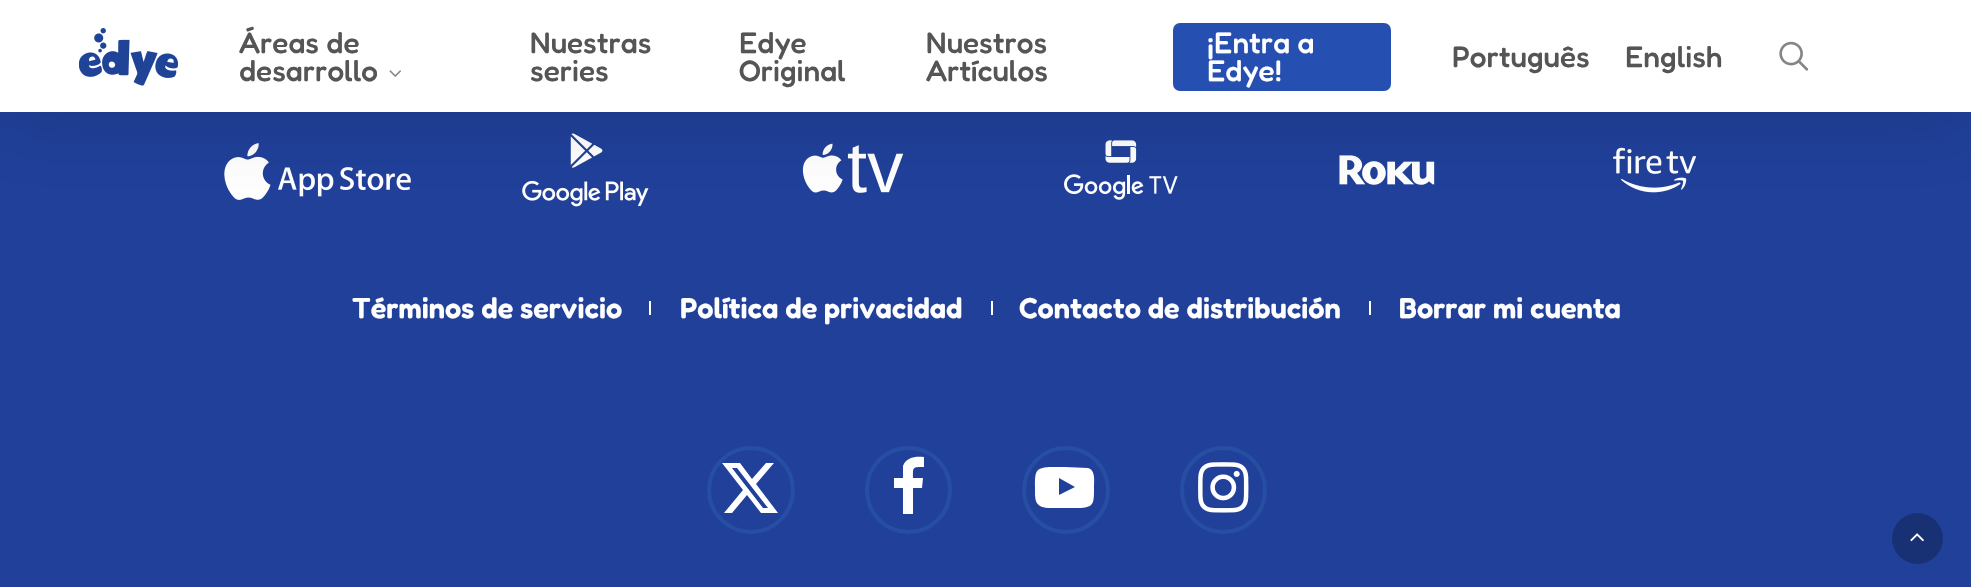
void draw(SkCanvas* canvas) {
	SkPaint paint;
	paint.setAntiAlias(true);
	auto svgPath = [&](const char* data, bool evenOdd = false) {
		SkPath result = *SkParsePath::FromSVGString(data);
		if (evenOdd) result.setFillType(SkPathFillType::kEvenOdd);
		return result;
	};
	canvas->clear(0xff20409a);
	canvas->drawImageRect(SkImages::DeferredFromEncodedData(SkData::MakeFromFileName("img4.png")), SkRect::MakeXYWH(224, 143, 187, 57), SkSamplingOptions());
	canvas->drawImageRect(SkImages::DeferredFromEncodedData(SkData::MakeFromFileName("img5.png")), SkRect::MakeXYWH(522, 133, 127, 74), SkSamplingOptions());
	canvas->drawImageRect(SkImages::DeferredFromEncodedData(SkData::MakeFromFileName("img6.png")), SkRect::MakeXYWH(802, 143, 102, 50), SkSamplingOptions());
	canvas->drawImageRect(SkImages::DeferredFromEncodedData(SkData::MakeFromFileName("img7.png")), SkRect::MakeXYWH(1064, 140, 114, 60), SkSamplingOptions());
	canvas->drawImageRect(SkImages::DeferredFromEncodedData(SkData::MakeFromFileName("img8.png")), SkRect::MakeXYWH(1339, 155, 96, 30), SkSamplingOptions());
	canvas->drawImageRect(SkImages::DeferredFromEncodedData(SkData::MakeFromFileName("img9.png")), SkRect::MakeXYWH(1613, 147, 83, 46), SkSamplingOptions());
	paint.setColor(0x26000000);
	paint.setMaskFilter(SkMaskFilter::MakeBlur(kNormal_SkBlurStyle, 39.5));
	canvas->drawRect(SkRect::MakeXYWH(0, 5, 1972, 112), paint);
	paint.setMaskFilter(nullptr);
	paint.setColor(0xffffffff);
	canvas->drawRect(SkRect::MakeXYWH(0, 0, 1971, 112), paint);
	canvas->drawImageRect(SkImages::DeferredFromEncodedData(SkData::MakeFromFileName("img1.png")), SkRect::MakeXYWH(79, 28, 100, 58), SkSamplingOptions());
	SkFont f1(fontMgr->matchFamilyStyle("Fredoka", SkFontStyle(500, SkFontStyle::kNormal_Width, SkFontStyle::kUpright_Slant)), 29.75);
	f1.setSubpixel(true);
	paint.setColor(0xff555555);
	canvas->drawString("Áreas de", 239, 53, f1, paint);
	canvas->drawString("desarrollo", 239, 81, f1, paint);
	canvas->drawImageRect(SkImages::DeferredFromEncodedData(SkData::MakeFromFileName("img2.png")), SkRect::MakeXYWH(389, 70, 12, 7), SkSamplingOptions());
	canvas->drawString("Nuestras", 530, 53, f1, paint);
	canvas->drawString("series", 530, 81, f1, paint);
	canvas->drawString("Edye", 739, 53, f1, paint);
	canvas->drawString("Original", 739, 81, f1, paint);
	canvas->drawString("Nuestros", 926, 53, f1, paint);
	canvas->drawString("Artículos", 926, 81, f1, paint);
	paint.setColor(0xff2550b2);
	canvas->drawRoundRect(SkRect::MakeXYWH(1173, 23, 218, 68), 7, 7, paint);
	paint.setColor(0xffffffff);
	canvas->drawString("¡Entra a", 1207, 53, f1, paint);
	canvas->drawString("Edye!", 1207, 81, f1, paint);
	paint.setColor(0xff555555);
	canvas->drawString("Português", 1452, 67, f1, paint);
	canvas->drawString("English", 1625, 67, f1, paint);
	canvas->drawImageRect(SkImages::DeferredFromEncodedData(SkData::MakeFromFileName("img3.png")), SkRect::MakeXYWH(1779, 41, 30, 30), SkSamplingOptions());
	SkFont f2(fontMgr->matchFamilyStyle("Fredoka", SkFontStyle(600, SkFontStyle::kNormal_Width, SkFontStyle::kUpright_Slant)), 28.9);
	f2.setSubpixel(true);
	paint.setColor(0xffffffff);
	canvas->drawString("Términos de servicio", 352, 318, f2, paint);
	canvas->drawRect(SkRect::MakeXYWH(649, 301, 2, 14), paint);
	canvas->drawString("Política de privacidad", 680, 318, f2, paint);
	canvas->drawRect(SkRect::MakeXYWH(991, 301, 2, 14), paint);
	canvas->drawString("Contacto de distribución", 1019, 318, f2, paint);
	canvas->drawRect(SkRect::MakeXYWH(1369, 301, 2, 14), paint);
	canvas->drawString("Borrar mi cuenta", 1399, 318, f2, paint);
	canvas->drawPath(svgPath("M766 463H774L756 484L778 513H761L747 495L732 513H724L743 490L722 463H740L752 479ZM763 508H768L737 468H732Z"), paint);
	paint.setStroke(true);
	paint.setStrokeWidth(4);
	paint.setColor(0xff264ea3);
	canvas->drawCircle(751, 490, 42, paint);
	paint.setStroke(false);
	paint.setColor(0xffffffff);
	canvas->drawPath(svgPath("M924 457V467C912 467 913 467 913 478H923L922 488H913V514H903V488H894V478H903V466C906 457 916 456 924 457Z"), paint);
	paint.setStroke(true);
	paint.setColor(0xff264ea3);
	canvas->drawRoundRect(SkRect::MakeXYWH(867, 448, 83, 84), 41.5, 41.5, paint);
	paint.setStroke(false);
	paint.setColor(0xffffffff);
	canvas->drawPath(svgPath("M1059 495L1075 487L1059 478ZM1065 467L1088 468C1096 470 1094 482 1094 488C1094 503 1094 507 1081 508H1065H1048C1034 507 1035 499 1035 487C1035 472 1035 468 1049 467Z"), paint);
	paint.setStroke(true);
	paint.setColor(0xff264ea3);
	canvas->drawCircle(1066, 490, 42, paint);
	canvas->drawImageRect(SkImages::DeferredFromEncodedData(SkData::MakeFromFileName("img10.png")), SkRect::MakeXYWH(1198, 462, 51, 51), SkSamplingOptions());
	canvas->drawRoundRect(SkRect::MakeXYWH(1182, 448, 83, 84), 41.5, 41.5, paint);
	paint.setStroke(false);
	paint.setColor(0xff183074);
	canvas->drawCircle(1917.5, 538.5, 25.5, paint);
	canvas->drawImageRect(SkImages::DeferredFromEncodedData(SkData::MakeFromFileName("img11.png")), SkRect::MakeXYWH(1910, 533, 14, 9), SkSamplingOptions());
}
